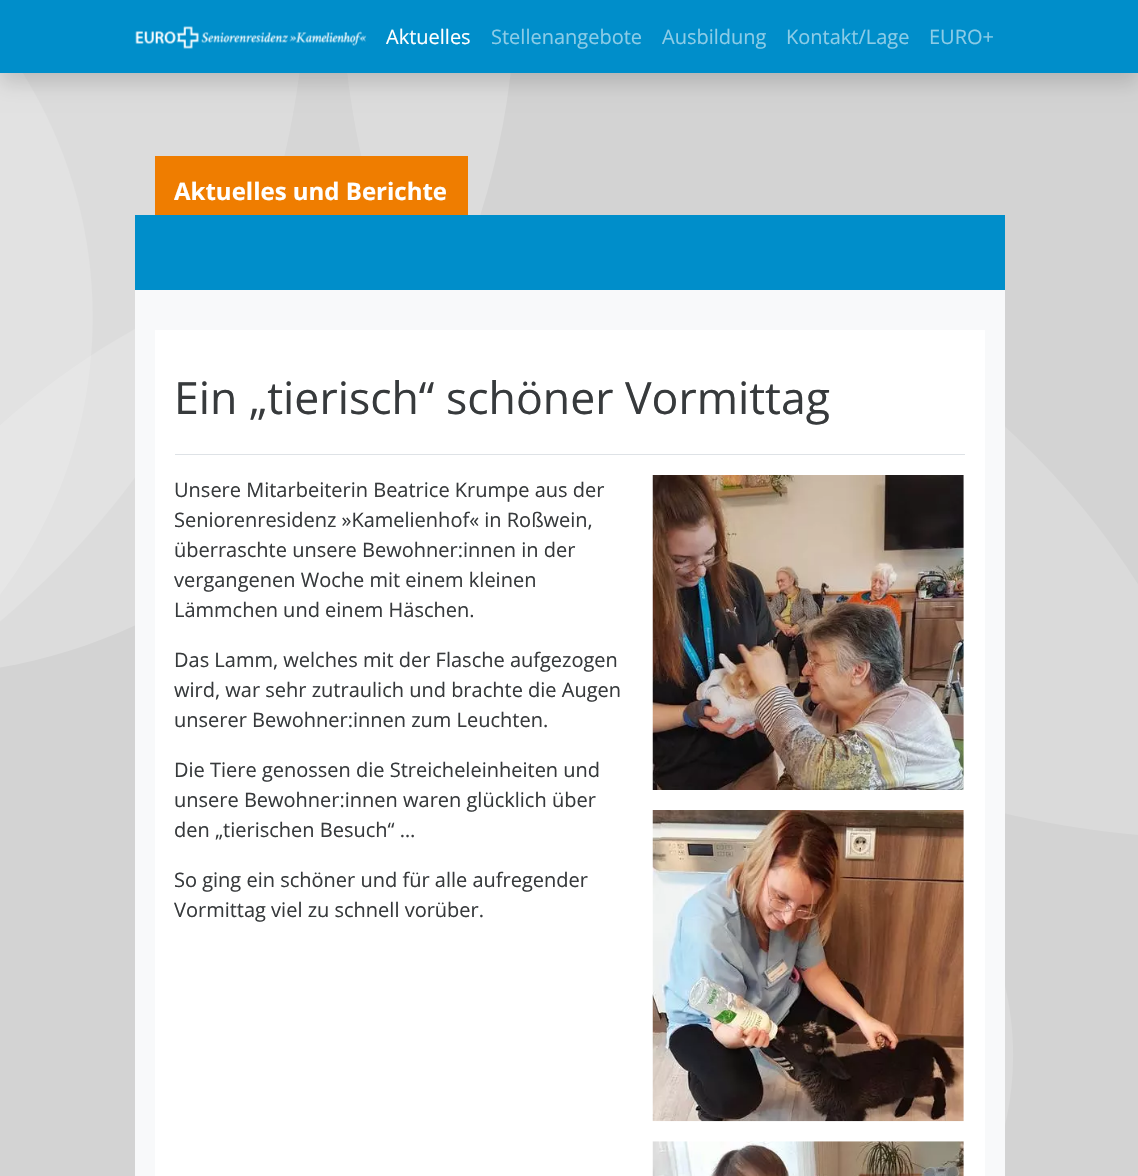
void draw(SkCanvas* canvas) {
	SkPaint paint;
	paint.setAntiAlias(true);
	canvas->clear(0xffcccccc);
	canvas->drawImageRect(SkImages::DeferredFromEncodedData(SkData::MakeFromFileName("img1.png")), SkRect::MakeXYWH(0, 73, 1138, 1103), SkSamplingOptions());
	paint.setColor(0x26000000);
	paint.setMaskFilter(SkMaskFilter::MakeBlur(kNormal_SkBlurStyle, 10));
	canvas->drawRect(SkRect::MakeXYWH(0, 10, 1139, 73), paint);
	paint.setMaskFilter(nullptr);
	paint.setColor(0xff008eca);
	canvas->drawRect(SkRect::MakeXYWH(0, 0, 1138, 73), paint);
	canvas->drawImageRect(SkImages::DeferredFromEncodedData(SkData::MakeFromFileName("img2.png")), SkRect::MakeXYWH(135, 26, 232, 23), SkSamplingOptions());
	SkFont f1(fontMgr->matchFamilyStyle("Open Sans", SkFontStyle::Normal()), 20);
	f1.setSubpixel(true);
	paint.setColor(0xffffffff);
	canvas->drawString("Aktuelles", 386, 44, f1, paint);
	paint.setColor(0xff8ccce7);
	canvas->drawString("Stellenangebote", 491, 44, f1, paint);
	canvas->drawString("Ausbildung", 662, 44, f1, paint);
	canvas->drawString("Kontakt/Lage", 786, 44, f1, paint);
	canvas->drawString("EURO+", 929, 44, f1, paint);
	paint.setColor(0xffef7d00);
	canvas->drawRect(SkRect::MakeXYWH(155, 156, 313, 59), paint);
	SkFont f2(fontMgr->matchFamilyStyle("Open Sans", SkFontStyle::Bold()), 24);
	f2.setSubpixel(true);
	paint.setColor(0xffffffff);
	canvas->drawString("Aktuelles und Berichte", 174, 200, f2, paint);
	paint.setColor(0xff008eca);
	canvas->drawRect(SkRect::MakeXYWH(135, 215, 870, 75), paint);
	paint.setColor(0xfff8f9fa);
	canvas->drawRect(SkRect::MakeXYWH(135, 290, 870, 886), paint);
	paint.setColor(0xffffffff);
	canvas->drawRect(SkRect::MakeXYWH(155, 330, 830, 846), paint);
	paint.setColor(0xffdee2e6);
	canvas->drawRect(SkRect::MakeXYWH(175, 454, 790, 1), paint);
	SkFont f3(fontMgr->matchFamilyStyle("Open Sans", SkFontStyle::Normal()), 44.6);
	f3.setSubpixel(true);
	paint.setColor(0xff373a3c);
	canvas->drawString("Ein „tierisch“ schöner Vormittag", 174, 414, f3, paint);
	canvas->drawString("Unsere Mitarbeiterin Beatrice Krumpe aus der", 174, 497, f1, paint);
	canvas->drawString("Seniorenresidenz »Kamelienhof« in Roßwein,", 174, 527, f1, paint);
	canvas->drawString("überraschte unsere Bewohner:innen in der", 174, 557, f1, paint);
	canvas->drawString("vergangenen Woche mit einem kleinen", 174, 587, f1, paint);
	canvas->drawString("Lämmchen und einem Häschen.", 174, 617, f1, paint);
	canvas->drawString("Das Lamm, welches mit der Flasche aufgezogen", 174, 667, f1, paint);
	canvas->drawString("wird, war sehr zutraulich und brachte die Augen", 174, 697, f1, paint);
	canvas->drawString("unserer Bewohner:innen zum Leuchten.", 174, 727, f1, paint);
	canvas->drawString("Die Tiere genossen die Streicheleinheiten und", 174, 777, f1, paint);
	canvas->drawString("unsere Bewohner:innen waren glücklich über", 174, 807, f1, paint);
	canvas->drawString("den „tierischen Besuch“ …", 174, 837, f1, paint);
	canvas->drawString("So ging ein schöner und für alle aufregender", 174, 887, f1, paint);
	canvas->drawString("Vormittag viel zu schnell vorüber.", 174, 917, f1, paint);
	canvas->drawImageRect(SkImages::DeferredFromEncodedData(SkData::MakeFromFileName("img3.png")), SkRect::MakeXYWH(652, 475, 312, 315), SkSamplingOptions());
	canvas->drawImageRect(SkImages::DeferredFromEncodedData(SkData::MakeFromFileName("img4.png")), SkRect::MakeXYWH(652, 810, 312, 312), SkSamplingOptions());
	canvas->drawImageRect(SkImages::DeferredFromEncodedData(SkData::MakeFromFileName("img5.png")), SkRect::MakeXYWH(652, 1141, 312, 35), SkSamplingOptions());
}
